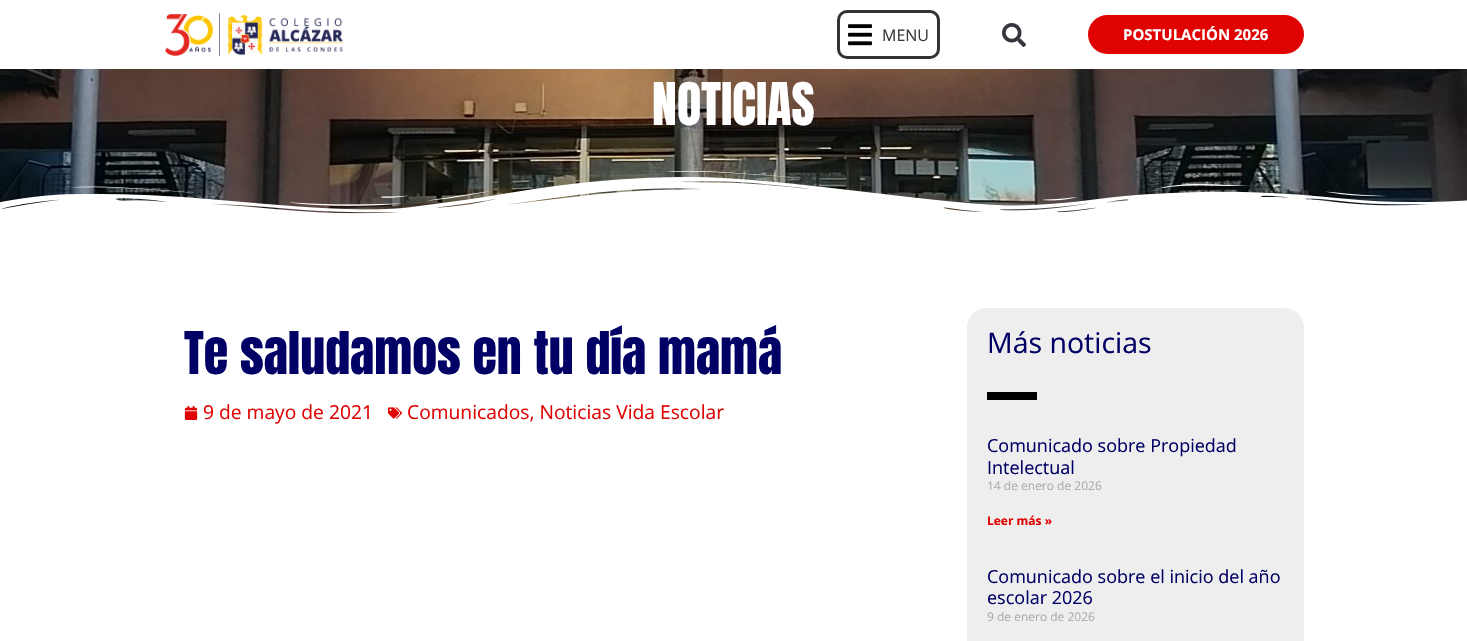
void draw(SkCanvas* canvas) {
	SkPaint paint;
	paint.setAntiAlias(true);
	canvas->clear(0xffffffff);
	canvas->drawImageRect(SkImages::DeferredFromEncodedData(SkData::MakeFromFileName("img1.png")), SkRect::MakeXYWH(165, 13, 179, 43), SkSamplingOptions());
	paint.setStroke(true);
	paint.setStrokeWidth(3);
	paint.setColor(0xff333333);
	canvas->drawRoundRect(SkRect::MakeXYWH(838.5, 11.5, 100, 46), 8.5, 8.5, paint);
	canvas->drawImageRect(SkImages::DeferredFromEncodedData(SkData::MakeFromFileName("img2.png")), SkRect::MakeXYWH(848, 24, 24, 22), SkSamplingOptions());
	SkFont f1(fontMgr->matchFamilyStyle("Open Sans", SkFontStyle::Normal()), 16);
	f1.setSubpixel(true);
	paint.setStroke(false);
	paint.setColor(0xff3a3a3a);
	canvas->drawString("MENU", 882, 41, f1, paint);
	canvas->drawImageRect(SkImages::DeferredFromEncodedData(SkData::MakeFromFileName("img3.png")), SkRect::MakeXYWH(1002, 23, 24, 24), SkSamplingOptions());
	paint.setColor(0xffe00302);
	canvas->drawRoundRect(SkRect::MakeXYWH(1088, 15, 216, 39), 19.5, 19.5, paint);
	SkFont f2(fontMgr->matchFamilyStyle("Open Sans", SkFontStyle::Bold()), 15);
	f2.setSubpixel(true);
	paint.setColor(0xffffffff);
	canvas->drawString("POSTULACIÓN 2026", 1123, 40, f2, paint);
	canvas->drawImageRect(SkImages::DeferredFromEncodedData(SkData::MakeFromFileName("img4.png")), SkRect::MakeXYWH(0, 69, 1467, 145), SkSamplingOptions());
	SkFont f3(fontMgr->matchFamilyStyle("Anton", SkFontStyle::Normal()), 50);
	f3.setSubpixel(true);
	canvas->drawString("NOTICIAS", 652, 125, f3, paint);
	canvas->drawImageRect(SkImages::DeferredFromEncodedData(SkData::MakeFromFileName("img5.png")), SkRect::MakeXYWH(0, 170, 1467, 48), SkSamplingOptions());
	paint.setColor(0xff000065);
	canvas->drawString("Te saludamos en tu día mamá", 184, 374, f3, paint);
	canvas->drawImageRect(SkImages::DeferredFromEncodedData(SkData::MakeFromFileName("img6.png")), SkRect::MakeXYWH(184, 406, 14, 14), SkSamplingOptions());
	SkFont f4(fontMgr->matchFamilyStyle("Open Sans", SkFontStyle::Normal()), 19.25);
	f4.setSubpixel(true);
	paint.setColor(0xffe00302);
	canvas->drawString("9 de mayo de 2021", 203, 419, f4, paint);
	canvas->drawImageRect(SkImages::DeferredFromEncodedData(SkData::MakeFromFileName("img7.png")), SkRect::MakeXYWH(388, 407, 14, 12), SkSamplingOptions());
	canvas->drawString("Comunicados, Noticias Vida Escolar", 407, 419, f4, paint);
	paint.setColor(0xffeeeeee);
	canvas->drawRoundRect(SkRect::MakeXYWH(967, 308, 337, 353), 20, 20, paint);
	SkFont f5(fontMgr->matchFamilyStyle("Open Sans", SkFontStyle::Normal()), 28.5);
	f5.setSubpixel(true);
	paint.setColor(0xff000065);
	canvas->drawString("Más noticias", 987, 353, f5, paint);
	paint.setColor(0xff000000);
	canvas->drawRect(SkRect::MakeXYWH(987, 392, 50, 8), paint);
	SkFont f6(fontMgr->matchFamilyStyle("Open Sans", SkFontStyle::Normal()), 18);
	f6.setSubpixel(true);
	paint.setColor(0xff000065);
	canvas->drawString("Comunicado sobre Propiedad", 987, 452, f6, paint);
	canvas->drawString("Intelectual", 987, 474, f6, paint);
	SkFont f7(fontMgr->matchFamilyStyle("Open Sans", SkFontStyle::Normal()), 12);
	f7.setSubpixel(true);
	paint.setColor(0xffadadad);
	canvas->drawString("14 de enero de 2026", 987, 490, f7, paint);
	SkFont f8(fontMgr->matchFamilyStyle("Open Sans", SkFontStyle::Bold()), 12);
	f8.setSubpixel(true);
	paint.setColor(0xffe00302);
	canvas->drawString("Leer más »", 987, 525, f8, paint);
	paint.setColor(0xff000065);
	canvas->drawString("Comunicado sobre el inicio del año", 987, 583, f6, paint);
	canvas->drawString("escolar 2026", 987, 604, f6, paint);
	paint.setColor(0xffadadad);
	canvas->drawString("9 de enero de 2026", 987, 621, f7, paint);
}
